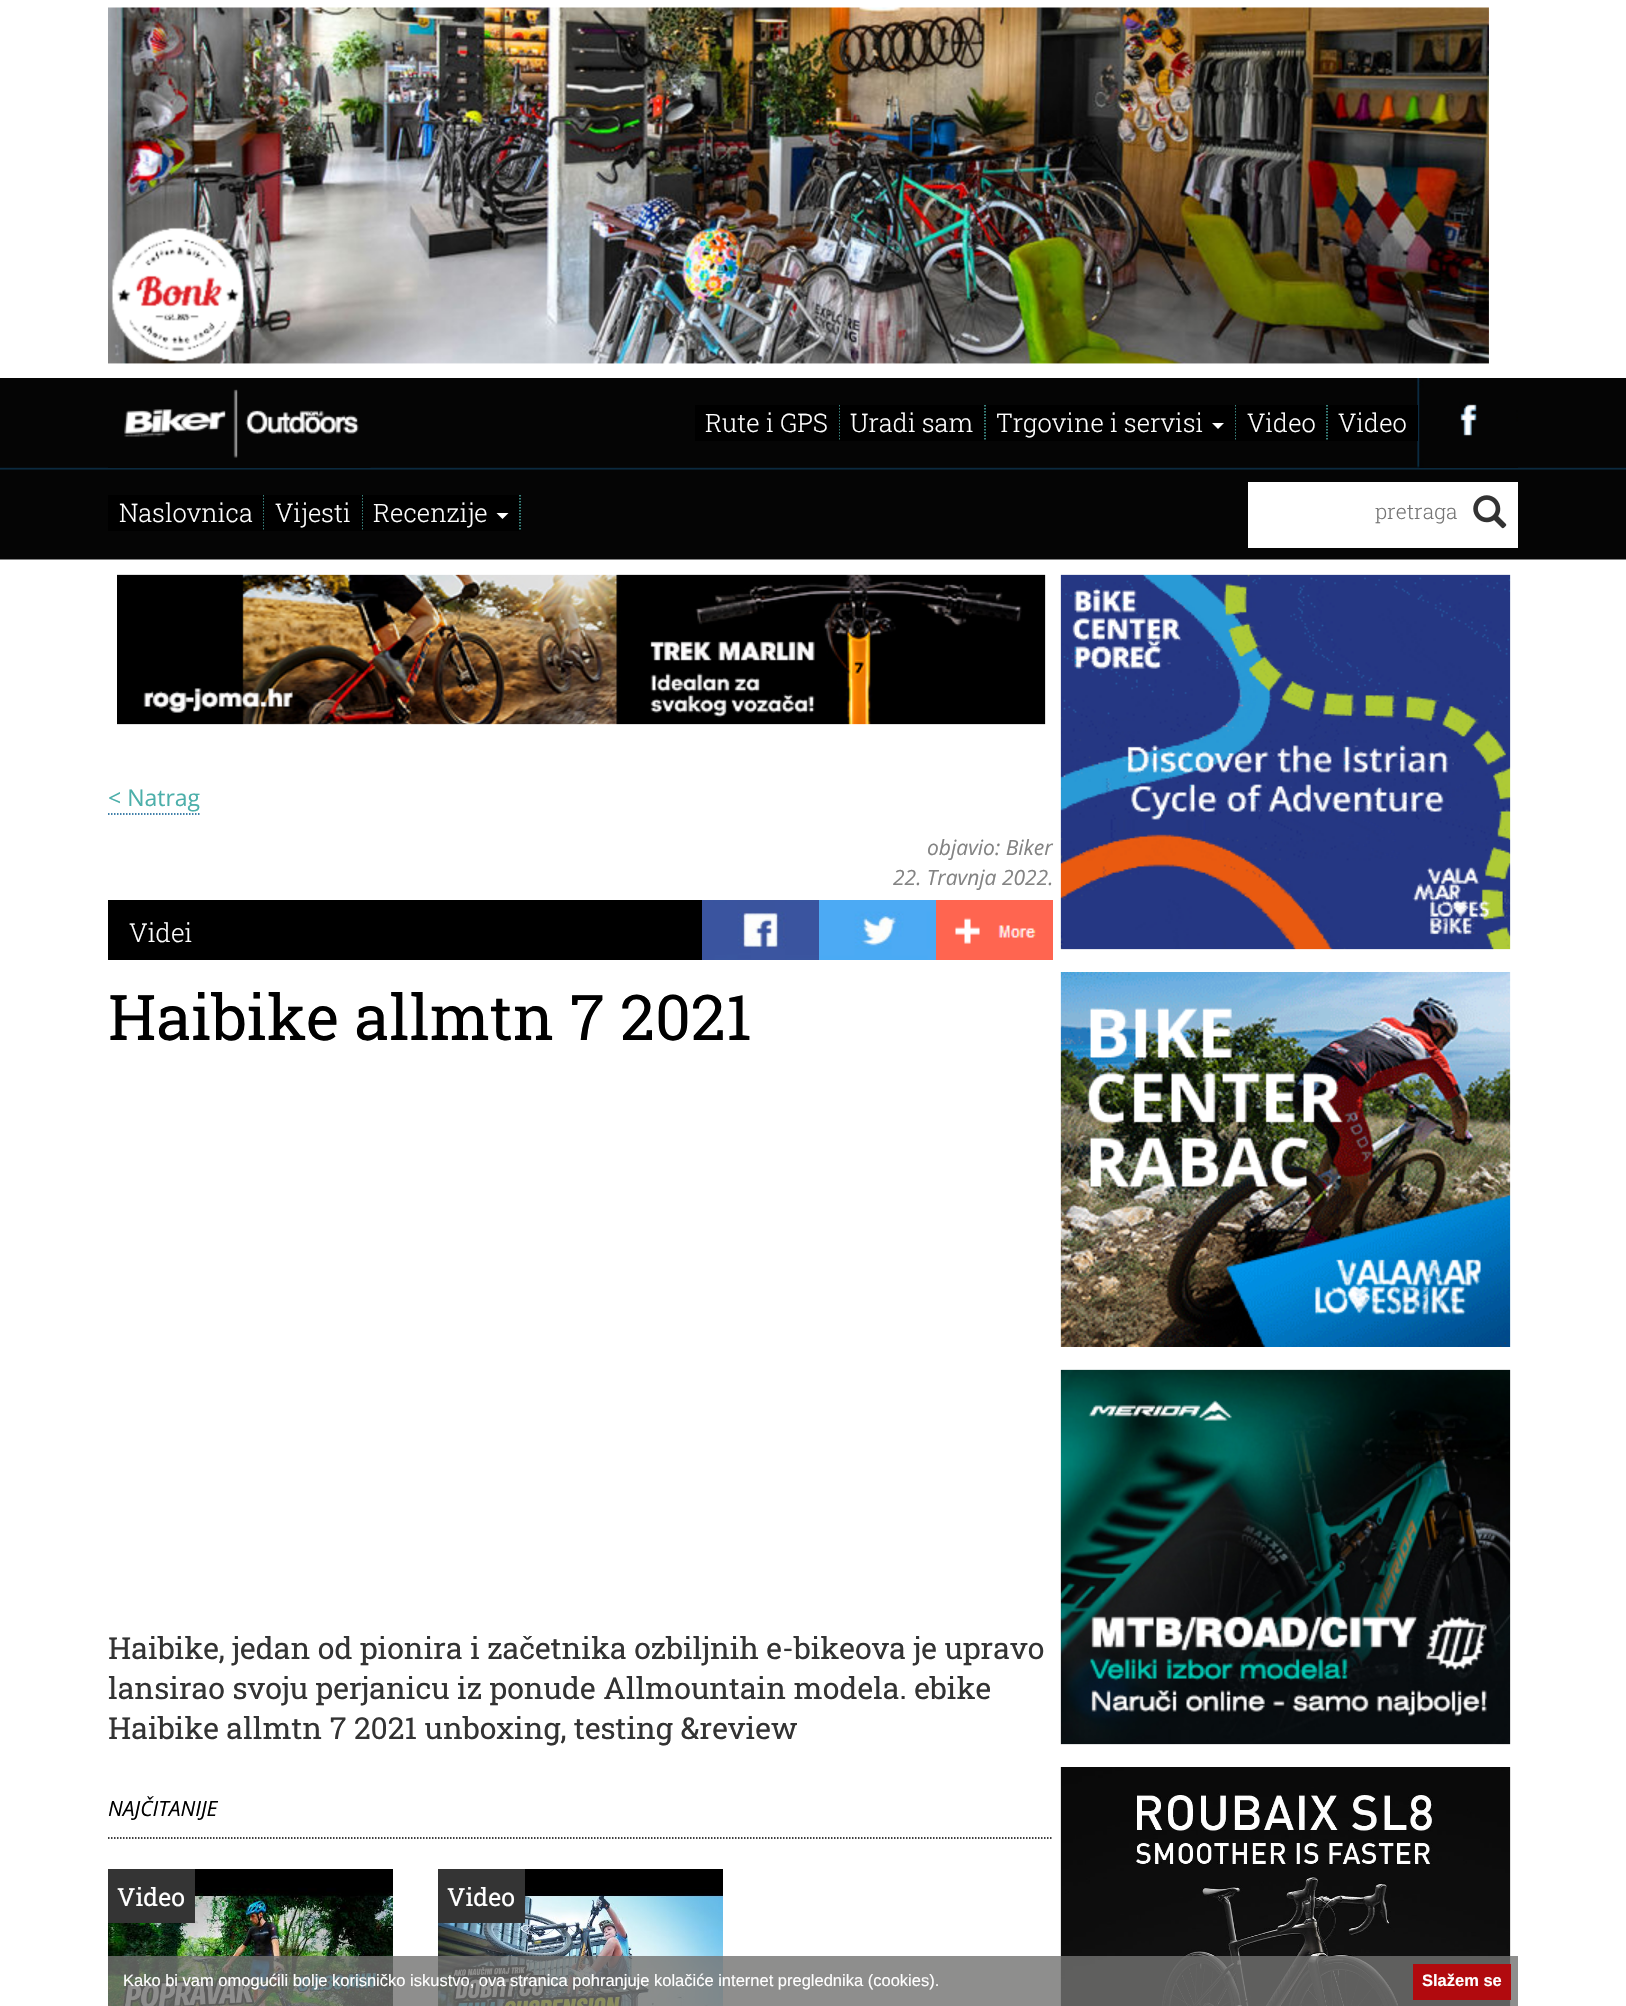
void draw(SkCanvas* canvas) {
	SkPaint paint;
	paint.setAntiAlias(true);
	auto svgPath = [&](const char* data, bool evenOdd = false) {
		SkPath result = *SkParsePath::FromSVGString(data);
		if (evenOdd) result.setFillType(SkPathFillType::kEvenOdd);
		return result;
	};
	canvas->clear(0xffffffff);
	canvas->drawImageRect(SkImages::DeferredFromEncodedData(SkData::MakeFromFileName("img1.png")), SkRect::MakeXYWH(108, 7, 1381, 357), SkSamplingOptions());
	canvas->drawImageRect(SkImages::DeferredFromEncodedData(SkData::MakeFromFileName("img2.png")), SkRect::MakeXYWH(0, 378, 1626, 182), SkSamplingOptions());
	canvas->drawImageRect(SkImages::DeferredFromEncodedData(SkData::MakeFromFileName("img3.png")), SkRect::MakeXYWH(108, 389, 263, 79), SkSamplingOptions());
	paint.setColor(0xff000000);
	canvas->drawRect(SkRect::MakeXYWH(839, 405, 147, 36), paint);
	paint.setStroke(true);
	paint.setStrokeWidth(1.5);
	paint.setColor(0xff4cb0a8);
	paint.setPathEffect(SkDashPathEffect::Make({{1.5f, 1.5f}}, 0));
	canvas->drawPath(svgPath("M839 405V441"), paint);
	paint.setPathEffect(nullptr);
	paint.setStroke(false);
	paint.setColor(0xff000000);
	canvas->drawRect(SkRect::MakeXYWH(695, 405, 144, 36), paint);
	SkFont f1(fontMgr->matchFamilyStyle("Roboto Slab", SkFontStyle(300, SkFontStyle::kNormal_Width, SkFontStyle::kUpright_Slant)), 25.5);
	f1.setSubpixel(true);
	paint.setColor(0xffffffff);
	canvas->drawString("Rute i GPS", 705, 432, f1, paint);
	paint.setStroke(true);
	paint.setColor(0xff4cb0a8);
	paint.setPathEffect(SkDashPathEffect::Make({{1.5f, 1.5f}}, 0));
	canvas->drawPath(svgPath("M985 405V441"), paint);
	paint.setPathEffect(nullptr);
	paint.setStroke(false);
	paint.setColor(0xffffffff);
	canvas->drawString("Uradi sam", 850, 432, f1, paint);
	canvas->drawImageRect(SkImages::DeferredFromEncodedData(SkData::MakeFromFileName("img4.png")), SkRect::MakeXYWH(1417, 378, 101, 90), SkSamplingOptions());
	paint.setColor(0xff000000);
	canvas->drawRect(SkRect::MakeXYWH(1235, 405, 183, 36), paint);
	paint.setStroke(true);
	paint.setColor(0xff4cb0a8);
	paint.setPathEffect(SkDashPathEffect::Make({{1.5f, 1.5f}}, 0));
	canvas->drawPath(svgPath("M1235 405V441"), paint);
	paint.setPathEffect(nullptr);
	paint.setStroke(false);
	paint.setColor(0xff000000);
	canvas->drawRect(SkRect::MakeXYWH(986, 405, 249, 36), paint);
	paint.setColor(0xffffffff);
	canvas->drawString("Trgovine i servisi", 996, 432, f1, paint);
	canvas->drawPath(svgPath("M1212 423H1224L1218 429Z"), paint);
	paint.setStroke(true);
	paint.setColor(0xff4cb0a8);
	paint.setPathEffect(SkDashPathEffect::Make({{1.5f, 1.5f}}, 0));
	canvas->drawPath(svgPath("M1327 405V441"), paint);
	paint.setPathEffect(nullptr);
	paint.setStroke(false);
	paint.setColor(0xffffffff);
	canvas->drawString("Video", 1247, 432, f1, paint);
	canvas->drawString("Video", 1338, 432, f1, paint);
	paint.setColor(0xff000000);
	canvas->drawRect(SkRect::MakeXYWH(263, 495, 1, 36), paint);
	paint.setStroke(true);
	paint.setColor(0xff4cb0a8);
	paint.setPathEffect(SkDashPathEffect::Make({{1.5f, 1.5f}}, 0));
	canvas->drawPath(svgPath("M263 495V531"), paint);
	paint.setPathEffect(nullptr);
	paint.setStroke(false);
	paint.setColor(0xff000000);
	canvas->drawRect(SkRect::MakeXYWH(108, 495, 155, 36), paint);
	paint.setColor(0xffffffff);
	canvas->drawString("Naslovnica", 119, 522, f1, paint);
	paint.setColor(0xff000000);
	canvas->drawRect(SkRect::MakeXYWH(362, 495, 159, 36), paint);
	paint.setStroke(true);
	paint.setColor(0xff4cb0a8);
	paint.setPathEffect(SkDashPathEffect::Make({{1.5f, 1.5f}}, 0));
	canvas->drawPath(svgPath("M362 495V531"), paint);
	paint.setPathEffect(nullptr);
	paint.setStroke(false);
	paint.setColor(0xff000000);
	canvas->drawRect(SkRect::MakeXYWH(264, 495, 98, 36), paint);
	paint.setColor(0xffffffff);
	canvas->drawString("Vijesti", 275, 522, f1, paint);
	paint.setStroke(true);
	paint.setColor(0xff4cb0a8);
	paint.setPathEffect(SkDashPathEffect::Make({{1.5f, 1.5f}}, 0));
	canvas->drawPath(svgPath("M520 495V531"), paint);
	paint.setPathEffect(nullptr);
	paint.setStroke(false);
	paint.setColor(0xffffffff);
	canvas->drawString("Recenzije", 373, 522, f1, paint);
	canvas->drawPath(svgPath("M496.5 513H508.5L502.5 519Z"), paint);
	canvas->drawRect(SkRect::MakeXYWH(1248, 482, 270, 66), paint);
	SkFont f2(fontMgr->matchFamilyStyle("Roboto Slab", SkFontStyle(300, SkFontStyle::kNormal_Width, SkFontStyle::kUpright_Slant)), 21);
	f2.setSubpixel(true);
	paint.setColor(0xff757575);
	canvas->drawString("pretraga", 1375, 519, f2, paint);
	canvas->drawImageRect(SkImages::DeferredFromEncodedData(SkData::MakeFromFileName("img5.png")), SkRect::MakeXYWH(1473, 495, 34, 34), SkSamplingOptions());
	canvas->drawImageRect(SkImages::DeferredFromEncodedData(SkData::MakeFromFileName("img6.png")), SkRect::MakeXYWH(117, 574, 929, 151), SkSamplingOptions());
	SkFont f3(fontMgr->matchFamilyStyle("Open Sans", SkFontStyle::Normal()), 23);
	f3.setSubpixel(true);
	paint.setColor(0xff4cafaa);
	canvas->drawString("< Natrag", 108, 806, f3, paint);
	paint.setStroke(true);
	paint.setColor(0xff01568d);
	paint.setPathEffect(SkDashPathEffect::Make({{1.5f, 1.5f}}, 0));
	canvas->drawPath(svgPath("M108 814H201"), paint);
	paint.setPathEffect(nullptr);
	SkFont f4(fontMgr->matchFamilyStyle("Open Sans", SkFontStyle::Italic()), 21);
	f4.setSubpixel(true);
	paint.setStroke(false);
	paint.setColor(0xff838383);
	canvas->drawString("objavio: Biker", 927, 855, f4, paint);
	canvas->drawString("22. Travnja 2022.", 893, 885, f4, paint);
	paint.setColor(0xff000000);
	canvas->drawRect(SkRect::MakeXYWH(108, 900, 594, 60), paint);
	SkFont f5(fontMgr->matchFamilyStyle("Roboto Slab", SkFontStyle(300, SkFontStyle::kNormal_Width, SkFontStyle::kUpright_Slant)), 26);
	f5.setSubpixel(true);
	paint.setColor(0xffffffff);
	canvas->drawString("Videi", 129, 942, f5, paint);
	canvas->drawImageRect(SkImages::DeferredFromEncodedData(SkData::MakeFromFileName("img7.png")), SkRect::MakeXYWH(702, 900, 117, 60), SkSamplingOptions());
	canvas->drawImageRect(SkImages::DeferredFromEncodedData(SkData::MakeFromFileName("img8.png")), SkRect::MakeXYWH(819, 900, 117, 60), SkSamplingOptions());
	canvas->drawImageRect(SkImages::DeferredFromEncodedData(SkData::MakeFromFileName("img9.png")), SkRect::MakeXYWH(936, 900, 117, 60), SkSamplingOptions());
	SkFont f6(fontMgr->matchFamilyStyle("Roboto Slab", SkFontStyle::Normal()), 63);
	f6.setSubpixel(true);
	paint.setColor(0xff000000);
	canvas->drawString("Haibike allmtn 7 2021", 108, 1040, f6, paint);
	SkFont f7(fontMgr->matchFamilyStyle("Roboto Slab", SkFontStyle::Normal()), 30.25);
	f7.setSubpixel(true);
	paint.setColor(0xff333333);
	canvas->drawString("Haibike, jedan od pionira i začetnika ozbiljnih e-bikeova je upravo", 108, 1659, f7, paint);
	canvas->drawString("lansirao svoju perjanicu iz ponude Allmountain modela. ebike", 108, 1699, f7, paint);
	canvas->drawString("Haibike allmtn 7 2021 unboxing, testing &review", 108, 1739, f7, paint);
	paint.setStroke(true);
	paint.setColor(0xff000000);
	paint.setPathEffect(SkDashPathEffect::Make({{1.5f, 1.5f}}, 0));
	canvas->drawPath(svgPath("M108 1838H1053"), paint);
	paint.setPathEffect(nullptr);
	paint.setStroke(false);
	canvas->drawString("NAJČITANIJE", 108, 1816, f4, paint);
	canvas->drawImageRect(SkImages::DeferredFromEncodedData(SkData::MakeFromFileName("img10.png")), SkRect::MakeXYWH(108, 1869, 285, 137), SkSamplingOptions());
	paint.setColor(0xff343434);
	canvas->drawRect(SkRect::MakeXYWH(108, 1869, 87, 54), paint);
	SkFont f8(fontMgr->matchFamilyStyle("Roboto Slab", SkFontStyle::Normal()), 25);
	f8.setSubpixel(true);
	paint.setColor(0xffffffff);
	canvas->drawString("Video", 117, 1906, f8, paint);
	canvas->drawImageRect(SkImages::DeferredFromEncodedData(SkData::MakeFromFileName("img11.png")), SkRect::MakeXYWH(438, 1869, 285, 137), SkSamplingOptions());
	paint.setColor(0xff343434);
	canvas->drawRect(SkRect::MakeXYWH(438, 1869, 87, 54), paint);
	paint.setColor(0xffffffff);
	canvas->drawString("Video", 447, 1906, f8, paint);
	canvas->drawImageRect(SkImages::DeferredFromEncodedData(SkData::MakeFromFileName("img12.png")), SkRect::MakeXYWH(1060, 574, 451, 376), SkSamplingOptions());
	canvas->drawImageRect(SkImages::DeferredFromEncodedData(SkData::MakeFromFileName("img13.png")), SkRect::MakeXYWH(1060, 972, 451, 375), SkSamplingOptions());
	canvas->drawImageRect(SkImages::DeferredFromEncodedData(SkData::MakeFromFileName("img14.png")), SkRect::MakeXYWH(1060, 1369, 451, 376), SkSamplingOptions());
	canvas->drawImageRect(SkImages::DeferredFromEncodedData(SkData::MakeFromFileName("img15.png")), SkRect::MakeXYWH(1060, 1767, 451, 239), SkSamplingOptions());
	paint.setColor(0xcc727270);
	canvas->drawRect(SkRect::MakeXYWH(108, 1956, 1410, 50), paint);
	SkFont f9(fontMgr->matchFamilyStyle("Liberation Sans", SkFontStyle::Normal()), 16.5);
	f9.setSubpixel(true);
	paint.setColor(0xffffffff);
	canvas->drawString("Kako bi vam omogućili bolje korisničko iskustvo, ova stranica pohranjuje kolačiće internet preglednika (cookies).", 123, 1986, f9, paint);
	paint.setColor(0xffb10a0e);
	canvas->drawRect(SkRect::MakeXYWH(1413, 1964, 98, 36), paint);
	SkFont f10(fontMgr->matchFamilyStyle("Liberation Sans", SkFontStyle::Bold()), 16.5);
	f10.setSubpixel(true);
	paint.setColor(0xffffffff);
	canvas->drawString("Slažem se", 1422, 1986, f10, paint);
}
